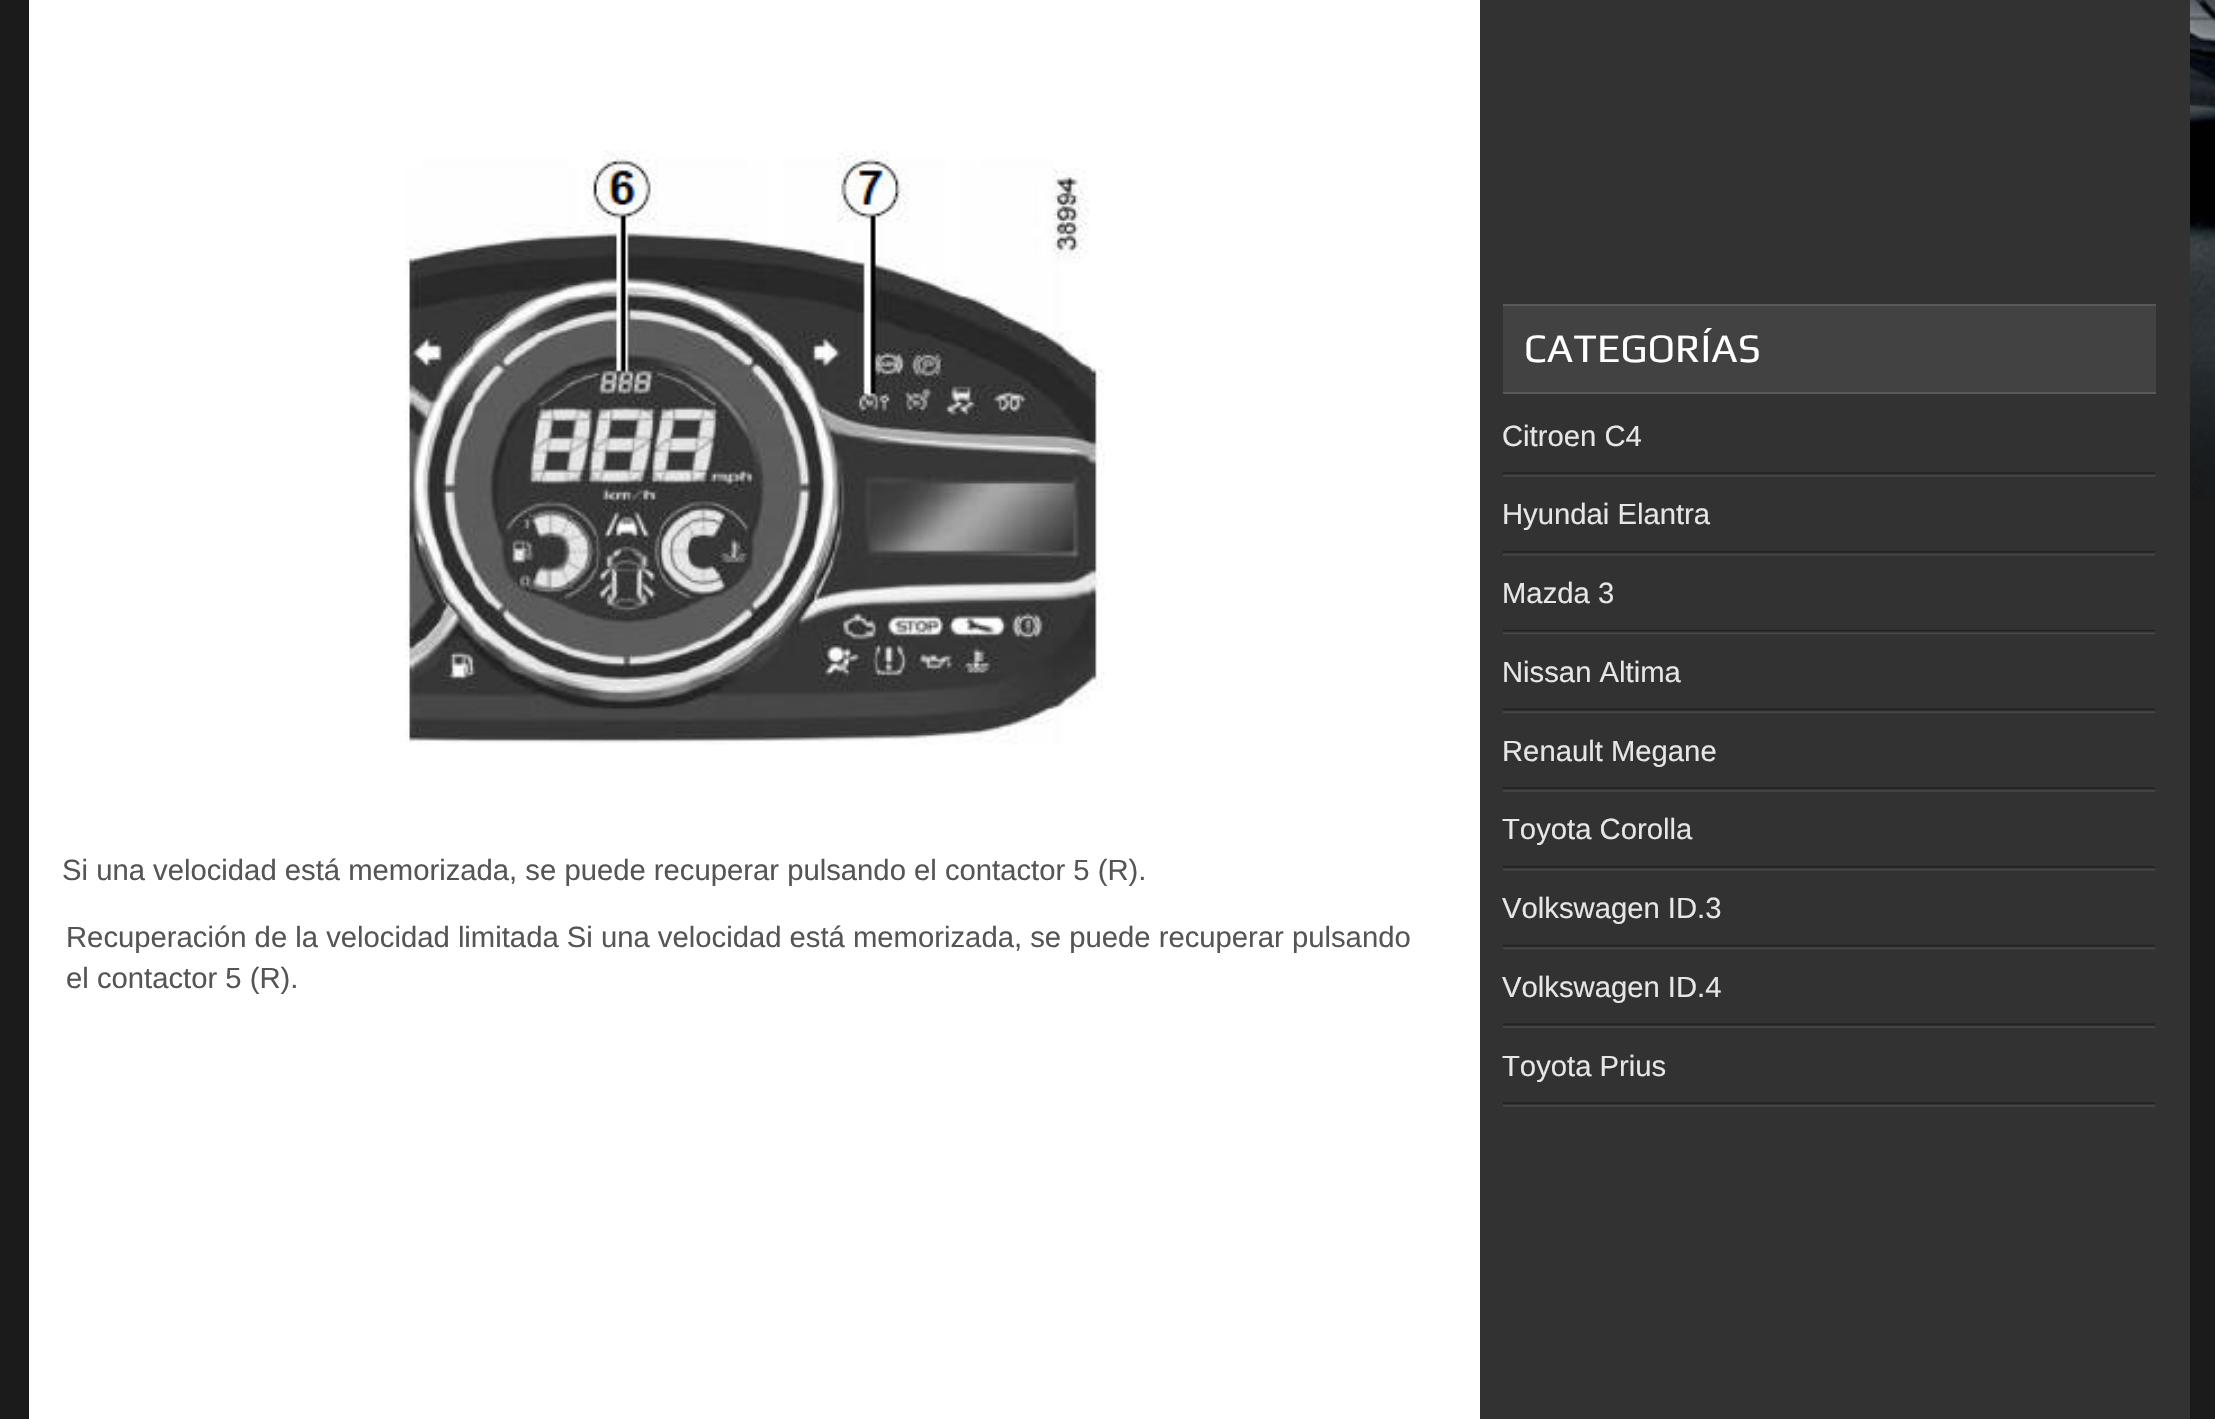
void draw(SkCanvas* canvas) {
	SkPaint paint;
	paint.setAntiAlias(true);
	canvas->clear(0xff1b1b1b);
	canvas->drawImageRect(SkImages::DeferredFromEncodedData(SkData::MakeFromFileName("img1.png")), SkRect::MakeXYWH(2190, 0, 25, 501), SkSamplingOptions());
	paint.setColor(0xffffffff);
	canvas->drawRect(SkRect::MakeXYWH(29, 0, 1451, 1419), paint);
	paint.setColor(0xff323232);
	canvas->drawRect(SkRect::MakeXYWH(1480, 0, 710, 1419), paint);
	canvas->drawImageRect(SkImages::DeferredFromEncodedData(SkData::MakeFromFileName("img2.png")), SkRect::MakeXYWH(405, 150, 700, 595), SkSamplingOptions());
	SkFont f1(fontMgr->matchFamilyStyle("Liberation Sans", SkFontStyle::Normal()), 29.25);
	f1.setSubpixel(true);
	paint.setColor(0xff555555);
	canvas->drawString("Si una velocidad está memorizada, se puede recuperar pulsando el contactor 5 (R).", 62, 880, f1, paint);
	canvas->drawString("Recuperación de la velocidad limitada Si una velocidad está memorizada, se puede recuperar pulsando", 66, 947, f1, paint);
	canvas->drawString("el contactor 5 (R).", 66, 988, f1, paint);
	paint.setColor(0xff424242);
	canvas->drawRect(SkRect::MakeXYWH(1503, 306, 653, 86), paint);
	paint.setColor(0xff595959);
	canvas->drawRect(SkRect::MakeXYWH(1503, 304, 653, 2), paint);
	canvas->drawRect(SkRect::MakeXYWH(1503, 392, 653, 2), paint);
	SkFont f2(fontMgr->matchFamilyStyle("Play", SkFontStyle::Normal()), 40.5);
	f2.setSubpixel(true);
	paint.setColor(0xffffffff);
	canvas->drawString("CATEGORÍAS", 1524, 362, f2, paint);
	canvas->drawImageRect(SkImages::DeferredFromEncodedData(SkData::MakeFromFileName("img3.png")), SkRect::MakeXYWH(1503, 472, 653, 5), SkSamplingOptions());
	paint.setColor(0xffe6e6e6);
	canvas->drawString("Citroen C4", 1502, 446, f1, paint);
	canvas->drawImageRect(SkImages::DeferredFromEncodedData(SkData::MakeFromFileName("img4.png")), SkRect::MakeXYWH(1503, 551, 653, 5), SkSamplingOptions());
	canvas->drawString("Hyundai Elantra", 1502, 524, f1, paint);
	canvas->drawImageRect(SkImages::DeferredFromEncodedData(SkData::MakeFromFileName("img5.png")), SkRect::MakeXYWH(1503, 629, 653, 6), SkSamplingOptions());
	canvas->drawString("Mazda 3", 1502, 603, f1, paint);
	canvas->drawImageRect(SkImages::DeferredFromEncodedData(SkData::MakeFromFileName("img6.png")), SkRect::MakeXYWH(1503, 708, 653, 5), SkSamplingOptions());
	canvas->drawString("Nissan Altima", 1502, 682, f1, paint);
	canvas->drawImageRect(SkImages::DeferredFromEncodedData(SkData::MakeFromFileName("img3.png")), SkRect::MakeXYWH(1503, 787, 653, 5), SkSamplingOptions());
	canvas->drawString("Renault Megane", 1502, 761, f1, paint);
	canvas->drawImageRect(SkImages::DeferredFromEncodedData(SkData::MakeFromFileName("img4.png")), SkRect::MakeXYWH(1503, 866, 653, 5), SkSamplingOptions());
	canvas->drawString("Toyota Corolla", 1502, 839, f1, paint);
	canvas->drawImageRect(SkImages::DeferredFromEncodedData(SkData::MakeFromFileName("img5.png")), SkRect::MakeXYWH(1503, 944, 653, 6), SkSamplingOptions());
	canvas->drawString("Volkswagen ID.3", 1502, 918, f1, paint);
	canvas->drawImageRect(SkImages::DeferredFromEncodedData(SkData::MakeFromFileName("img6.png")), SkRect::MakeXYWH(1503, 1023, 653, 5), SkSamplingOptions());
	canvas->drawString("Volkswagen ID.4", 1502, 997, f1, paint);
	canvas->drawImageRect(SkImages::DeferredFromEncodedData(SkData::MakeFromFileName("img3.png")), SkRect::MakeXYWH(1503, 1102, 653, 5), SkSamplingOptions());
	canvas->drawString("Toyota Prius", 1502, 1076, f1, paint);
}
